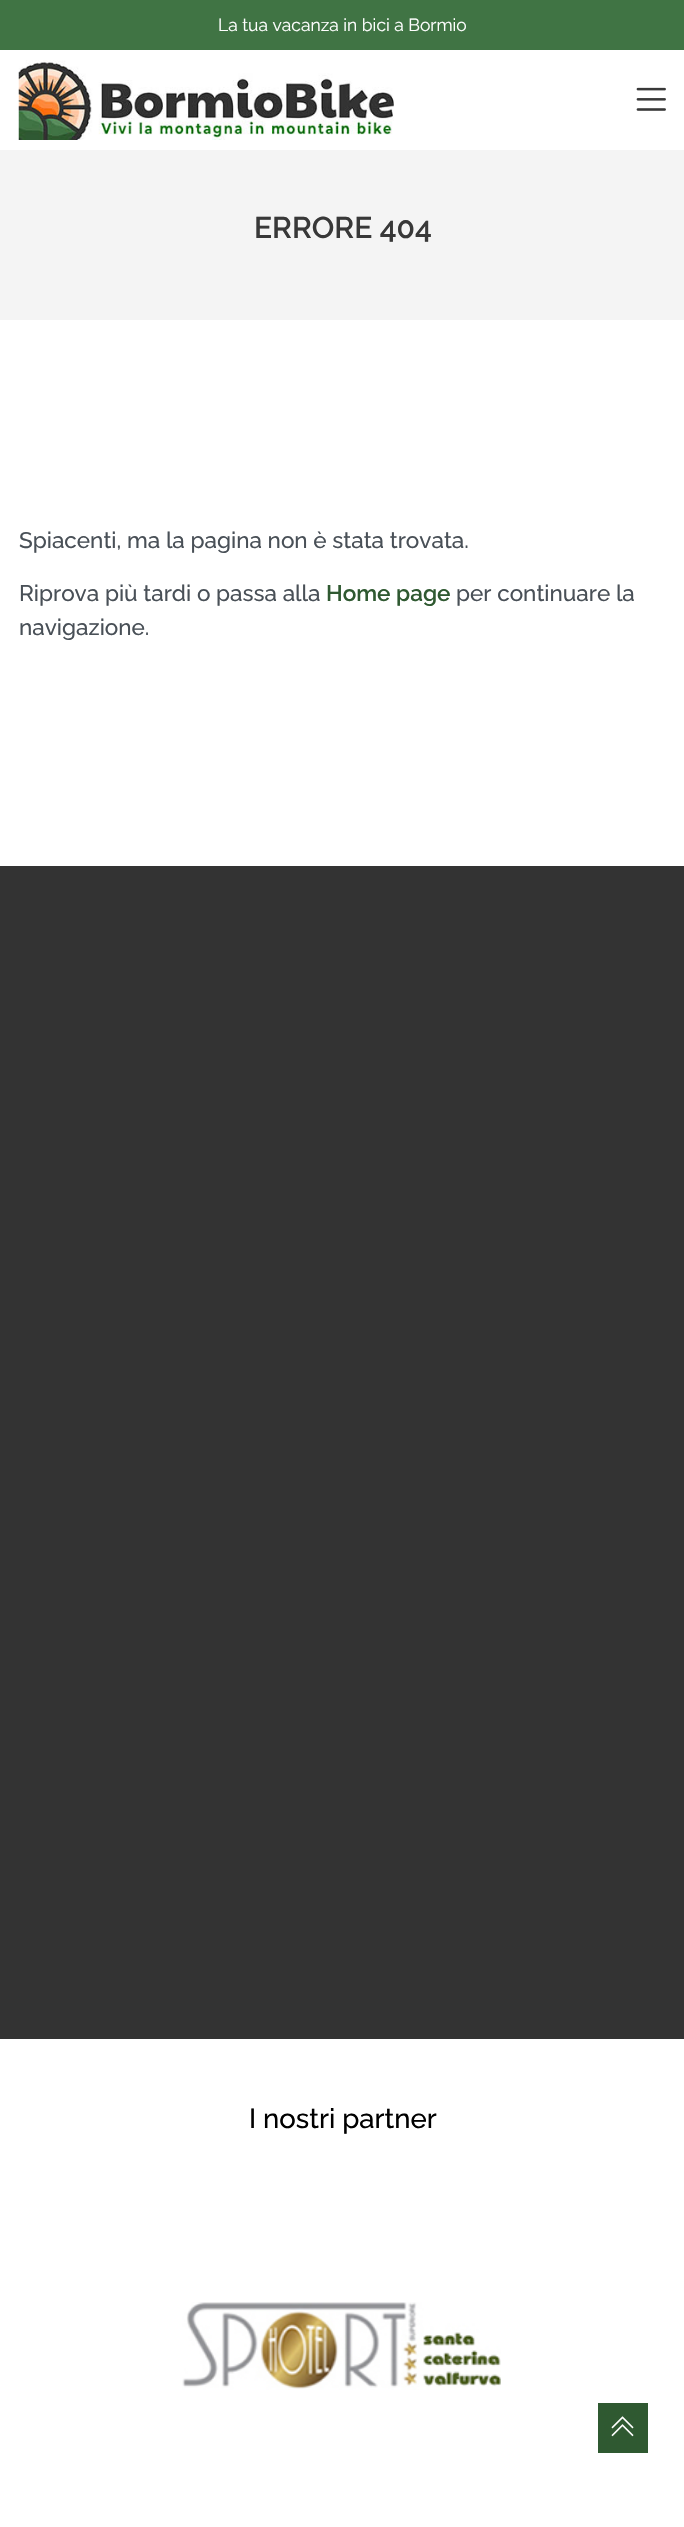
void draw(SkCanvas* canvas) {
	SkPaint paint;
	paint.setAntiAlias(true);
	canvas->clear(0xffffffff);
	paint.setColor(0xff407444);
	canvas->drawRect(SkRect::MakeXYWH(0, 0, 684, 50), paint);
	SkFont f1(fontMgr->matchFamilyStyle("Raleway", SkFontStyle::Normal()), 17.5);
	f1.setSubpixel(true);
	paint.setColor(0xffffffff);
	canvas->drawString("La tua vacanza in bici a Bormio", 218, 31, f1, paint);
	canvas->drawImageRect(SkImages::DeferredFromEncodedData(SkData::MakeFromFileName("img1.png")), SkRect::MakeXYWH(18, 60, 376, 80), SkSamplingOptions());
	canvas->drawImageRect(SkImages::DeferredFromEncodedData(SkData::MakeFromFileName("img2.png")), SkRect::MakeXYWH(636, 87, 30, 24), SkSamplingOptions());
	paint.setColor(0xfff4f4f4);
	canvas->drawRect(SkRect::MakeXYWH(0, 150, 684, 170), paint);
	SkFont f2(fontMgr->matchFamilyStyle("Raleway", SkFontStyle(600, SkFontStyle::kNormal_Width, SkFontStyle::kUpright_Slant)), 30);
	f2.setSubpixel(true);
	paint.setColor(0xff383838);
	canvas->drawString("ERRORE 404", 254, 238, f2, paint);
	SkFont f3(fontMgr->matchFamilyStyle("Raleway", SkFontStyle(500, SkFontStyle::kNormal_Width, SkFontStyle::kUpright_Slant)), 22.5);
	f3.setSubpixel(true);
	paint.setColor(0xff495057);
	canvas->drawString("Spiacenti, ma la pagina non è stata trovata.", 19, 548, f3, paint);
	canvas->drawString("Riprova più tardi o passa alla", 19, 601, f3, paint);
	SkFont f4(fontMgr->matchFamilyStyle("Raleway", SkFontStyle(600, SkFontStyle::kNormal_Width, SkFontStyle::kUpright_Slant)), 22.5);
	f4.setSubpixel(true);
	paint.setColor(0xff2f5931);
	canvas->drawString("Home page", 326, 601, f4, paint);
	paint.setColor(0xff495057);
	canvas->drawString("per continuare la", 456, 601, f3, paint);
	canvas->drawString("navigazione.", 19, 635, f3, paint);
	paint.setColor(0xff333333);
	canvas->drawRect(SkRect::MakeXYWH(0, 866, 684, 1173), paint);
	SkFont f5(fontMgr->matchFamilyStyle("Raleway", SkFontStyle(500, SkFontStyle::kNormal_Width, SkFontStyle::kUpright_Slant)), 27.5);
	f5.setSubpixel(true);
	paint.setColor(0xff000000);
	canvas->drawString("I nostri partner", 249, 2128, f5, paint);
	canvas->drawImageRect(SkImages::DeferredFromEncodedData(SkData::MakeFromFileName("img3.png")), SkRect::MakeXYWH(182, 2302, 319, 88), SkSamplingOptions());
	paint.setColor(0xff2f5931);
	canvas->drawRect(SkRect::MakeXYWH(598, 2403, 50, 50), paint);
	canvas->drawImageRect(SkImages::DeferredFromEncodedData(SkData::MakeFromFileName("img4.png")), SkRect::MakeXYWH(611, 2416, 23, 21), SkSamplingOptions());
}
